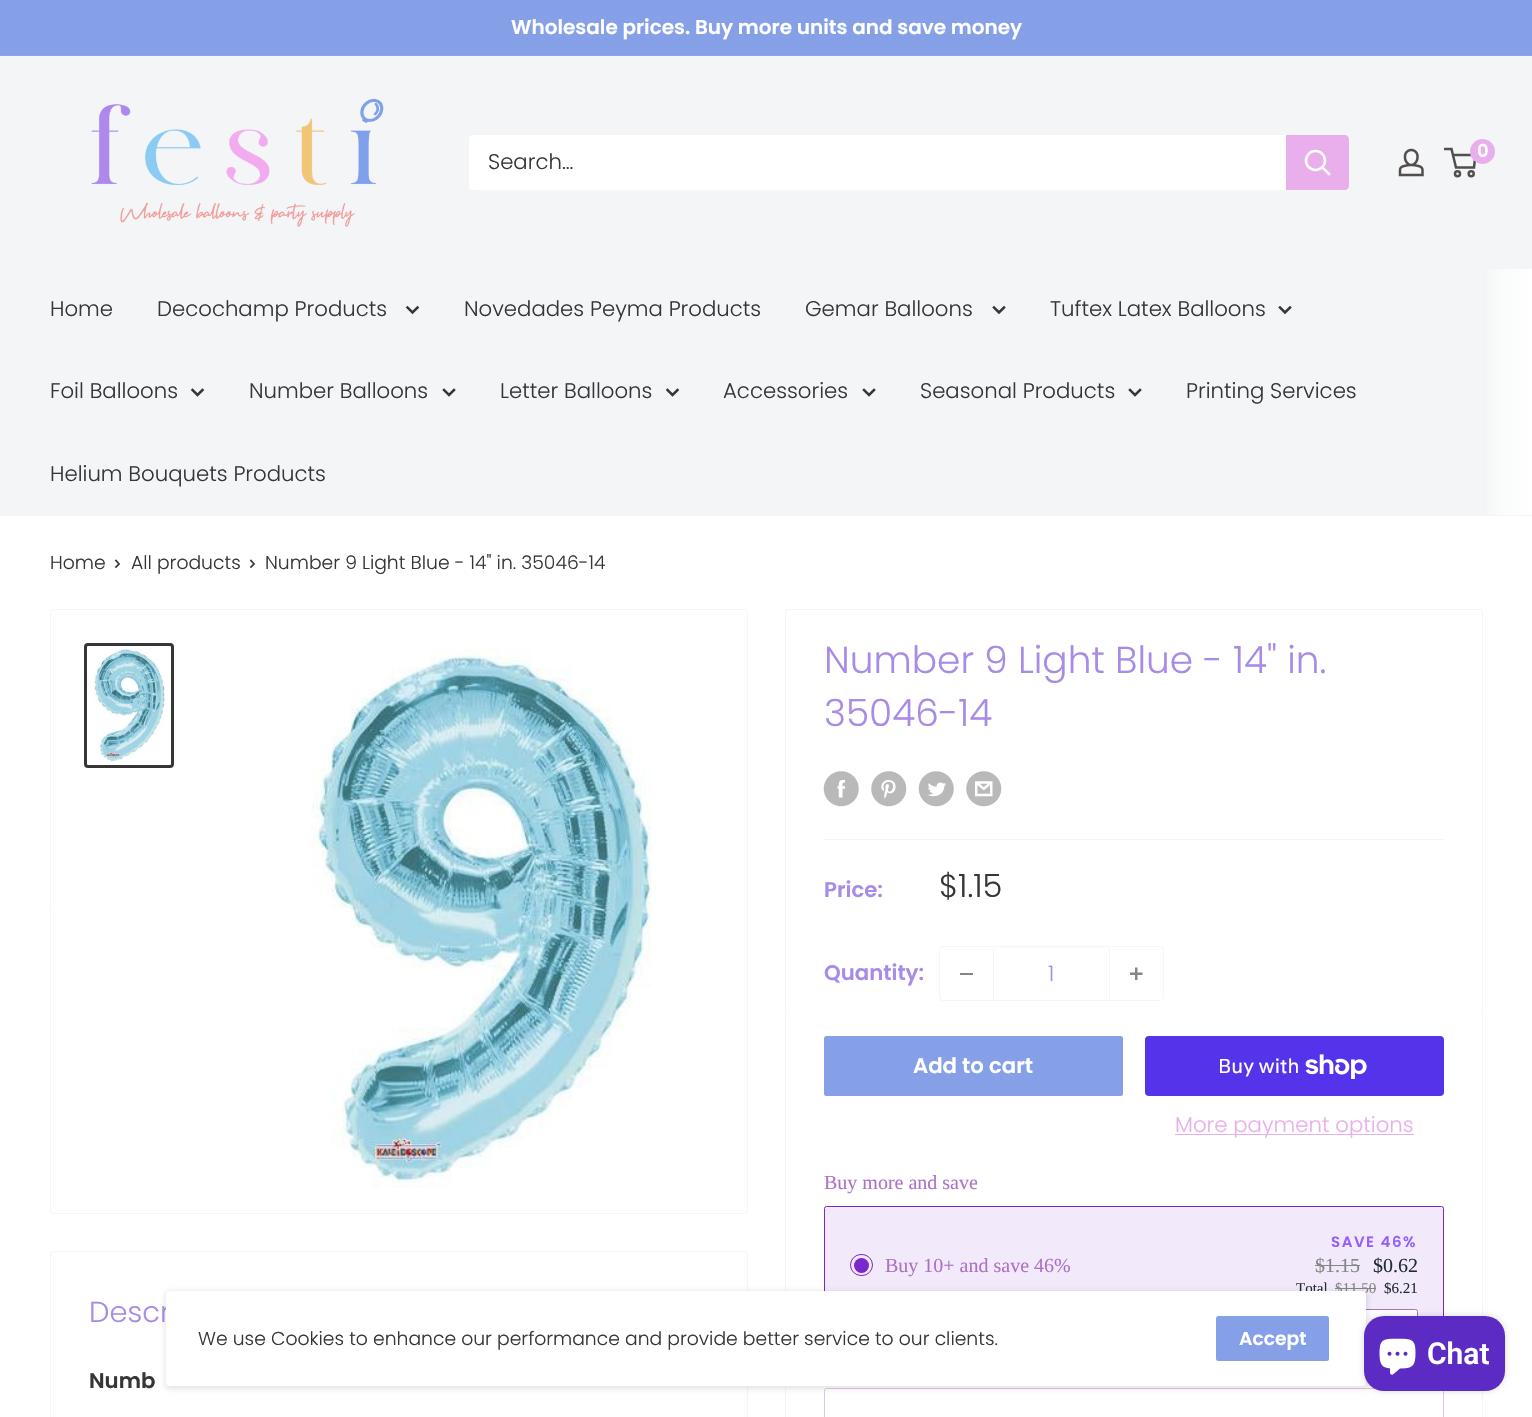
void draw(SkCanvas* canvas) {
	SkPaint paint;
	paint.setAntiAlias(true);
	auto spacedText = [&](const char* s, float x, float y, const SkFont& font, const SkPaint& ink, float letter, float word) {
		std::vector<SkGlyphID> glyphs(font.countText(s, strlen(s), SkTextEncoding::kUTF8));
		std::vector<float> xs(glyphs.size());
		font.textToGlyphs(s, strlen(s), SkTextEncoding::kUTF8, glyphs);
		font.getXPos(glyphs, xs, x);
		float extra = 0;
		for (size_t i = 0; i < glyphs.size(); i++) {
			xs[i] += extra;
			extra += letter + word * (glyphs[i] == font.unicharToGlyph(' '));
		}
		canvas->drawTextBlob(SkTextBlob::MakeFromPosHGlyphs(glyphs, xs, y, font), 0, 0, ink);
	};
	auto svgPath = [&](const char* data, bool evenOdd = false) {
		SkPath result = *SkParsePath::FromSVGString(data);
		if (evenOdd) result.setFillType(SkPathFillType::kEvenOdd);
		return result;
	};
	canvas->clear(0xffffffff);
	paint.setColor(0xff85a0e7);
	canvas->drawRect(SkRect::MakeXYWH(0, 0, 1532, 55), paint);
	paint.setColor(0xff8ea5e9);
	canvas->drawRect(SkRect::MakeXYWH(0, 55, 1532, 1), paint);
	SkFont f1(fontMgr->matchFamilyStyle("Poppins", SkFontStyle(600, SkFontStyle::kNormal_Width, SkFontStyle::kUpright_Slant)), 20);
	f1.setSubpixel(true);
	paint.setColor(0xffffffff);
	canvas->drawString("Wholesale prices. Buy more units and save money", 511, 34, f1, paint);
	paint.setColor(0xfff3f5f6);
	canvas->drawRect(SkRect::MakeXYWH(0, 56, 1532, 460), paint);
	canvas->drawImageRect(SkImages::DeferredFromEncodedData(SkData::MakeFromFileName("img1.png")), SkRect::MakeXYWH(91, 98, 293, 129), SkSamplingOptions());
	canvas->drawImageRect(SkImages::DeferredFromEncodedData(SkData::MakeFromFileName("img2.png")), SkRect::MakeXYWH(1398, 148, 26, 29), SkSamplingOptions());
	paint.setStroke(true);
	paint.setStrokeWidth(2.5);
	paint.setColor(0xff534e4e);
	canvas->drawCircle(1457.5, 173.8, 2.5, paint);
	canvas->drawCircle(1471.2, 173.8, 2.5, paint);
	canvas->drawPath(svgPath("M1453 155H1475.5L1474 167.5H1456L1451.5 149H1444"), paint);
	paint.setStroke(false);
	paint.setColor(0xffe9afec);
	canvas->drawCircle(1482.5, 151.5, 12.5, paint);
	SkFont f2(fontMgr->matchFamilyStyle("Poppins", SkFontStyle(600, SkFontStyle::kNormal_Width, SkFontStyle::kUpright_Slant)), 18);
	f2.setSubpixel(true);
	paint.setColor(0xffffffff);
	canvas->drawString("0", 1477, 157, f2, paint);
	canvas->drawRoundRect(SkRect::MakeXYWH(469, 135, 880, 55), 4, 4, paint);
	SkFont f3(fontMgr->matchFamilyStyle("Poppins", SkFontStyle(300, SkFontStyle::kNormal_Width, SkFontStyle::kUpright_Slant)), 21.25);
	f3.setSubpixel(true);
	paint.setColor(0xff363636);
	canvas->drawString("Search...", 488, 169, f3, paint);
	paint.setColor(0xffe9afec);
	canvas->drawPath(svgPath("M1286 135H1345C1347 135 1349 137 1349 139V186C1349 188 1347 190 1345 190H1286Z"), paint);
	paint.setStroke(true);
	paint.setStrokeCap(SkPaint::kSquare_Cap);
	paint.setColor(0xffffffff);
	canvas->drawPath(svgPath("M1329 174L1322.5 167.5"), paint);
	paint.setStrokeCap(SkPaint::kButt_Cap);
	canvas->drawCircle(1315.5, 160.5, 9.5, paint);
	paint.setStroke(false);
	paint.setColor(0xff363636);
	canvas->drawString("Home", 50, 316, f3, paint);
	canvas->drawString("Decochamp Products", 157, 316, f3, paint);
	paint.setStroke(true);
	paint.setStrokeCap(SkPaint::kSquare_Cap);
	canvas->drawPath(svgPath("M417.5 307.5L412.5 312.5L407.5 307.5"), paint);
	paint.setStroke(false);
	canvas->drawString("Novedades Peyma Products", 464, 316, f3, paint);
	canvas->drawString("Gemar Balloons", 805, 316, f3, paint);
	paint.setStroke(true);
	canvas->drawPath(svgPath("M1004 307.5L999 312.5L994 307.5"), paint);
	paint.setStroke(false);
	canvas->drawString("Tuftex Latex Balloons", 1050, 316, f3, paint);
	paint.setStroke(true);
	canvas->drawPath(svgPath("M1290 307.5L1285 312.5L1280 307.5"), paint);
	paint.setStroke(false);
	canvas->drawString("Foil Balloons", 50, 398, f3, paint);
	paint.setStroke(true);
	canvas->drawPath(svgPath("M202.5 390L197.5 395L192.5 390"), paint);
	paint.setStroke(false);
	canvas->drawString("Number Balloons", 249, 398, f3, paint);
	paint.setStroke(true);
	canvas->drawPath(svgPath("M454 390L449 395L444 390"), paint);
	paint.setStroke(false);
	canvas->drawString("Letter Balloons", 500, 398, f3, paint);
	paint.setStroke(true);
	canvas->drawPath(svgPath("M677.5 390L672.5 395L667.5 390"), paint);
	paint.setStroke(false);
	canvas->drawString("Accessories", 723, 398, f3, paint);
	paint.setStroke(true);
	canvas->drawPath(svgPath("M874 390L869 395L864 390"), paint);
	paint.setStroke(false);
	canvas->drawString("Seasonal Products", 920, 398, f3, paint);
	paint.setStroke(true);
	canvas->drawPath(svgPath("M1140 390L1135 395L1130 390"), paint);
	paint.setStroke(false);
	canvas->drawString("Printing Services", 1186, 398, f3, paint);
	canvas->drawString("Helium Bouquets Products", 50, 481, f3, paint);
	{
		const SkColor colors[] = {0xfff4f6f7, 0xfffafbfb, 0xffffffff};
		const float stops[] = {0, 0.35, 1};
		const SkPoint ends[] = {{1483, 392}, {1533, 392}};
		paint.setShader(SkGradientShader::MakeLinear(ends, colors, stops, 3, SkTileMode::kClamp));
		paint.setAlpha(255);
	}
	canvas->drawRect(SkRect::MakeXYWH(1487, 269, 45, 246), paint);
	SkFont f4(fontMgr->matchFamilyStyle("Poppins", SkFontStyle(300, SkFontStyle::kNormal_Width, SkFontStyle::kUpright_Slant)), 18.75);
	f4.setSubpixel(true);
	paint.setShader(nullptr);
	paint.setColor(0xff363636);
	canvas->drawString("Home", 50, 569, f4, paint);
	paint.setStroke(true);
	paint.setStrokeWidth(1.7);
	canvas->drawPath(svgPath("M116 560.5L119 564L116 567"), paint);
	paint.setStroke(false);
	canvas->drawString("All products", 131, 569, f4, paint);
	paint.setStroke(true);
	canvas->drawPath(svgPath("M251 560.5L254 564L251 567"), paint);
	paint.setStroke(false);
	canvas->drawString("Number 9 Light Blue - 14\" in. 35046-14", 265, 569, f4, paint);
	paint.setStroke(true);
	paint.setStrokeWidth(1);
	paint.setStrokeCap(SkPaint::kButt_Cap);
	paint.setColor(0xfff3f5f6);
	canvas->drawRoundRect(SkRect::MakeXYWH(50.5, 609.5, 697, 604), 3.5, 3.5, paint);
	paint.setStrokeWidth(3);
	paint.setColor(0xff363636);
	canvas->drawRoundRect(SkRect::MakeXYWH(85.5, 644.5, 87, 122), 2.5, 2.5, paint);
	canvas->drawImageRect(SkImages::DeferredFromEncodedData(SkData::MakeFromFileName("img3.png")), SkRect::MakeXYWH(93, 647, 74, 115), SkSamplingOptions());
	canvas->drawImageRect(SkImages::DeferredFromEncodedData(SkData::MakeFromFileName("img4.png")), SkRect::MakeXYWH(311, 647, 341, 541), SkSamplingOptions());
	paint.setStrokeWidth(1);
	paint.setColor(0xfff3f5f6);
	canvas->drawRoundRect(SkRect::MakeXYWH(785.5, 609.5, 697, 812), 3.5, 3.5, paint);
	SkFont f5(fontMgr->matchFamilyStyle("Poppins", SkFontStyle(300, SkFontStyle::kNormal_Width, SkFontStyle::kUpright_Slant)), 37.5);
	f5.setSubpixel(true);
	paint.setStroke(false);
	paint.setColor(0xffa88be7);
	canvas->drawString("Number 9 Light Blue - 14\" in.", 824, 673, f5, paint);
	canvas->drawString("35046-14", 824, 726, f5, paint);
	canvas->drawImageRect(SkImages::DeferredFromEncodedData(SkData::MakeFromFileName("img5.png")), SkRect::MakeXYWH(823, 771, 36, 36), SkSamplingOptions());
	canvas->drawImageRect(SkImages::DeferredFromEncodedData(SkData::MakeFromFileName("img6.png")), SkRect::MakeXYWH(871, 771, 36, 36), SkSamplingOptions());
	canvas->drawImageRect(SkImages::DeferredFromEncodedData(SkData::MakeFromFileName("img7.png")), SkRect::MakeXYWH(918, 771, 36, 36), SkSamplingOptions());
	canvas->drawImageRect(SkImages::DeferredFromEncodedData(SkData::MakeFromFileName("img8.png")), SkRect::MakeXYWH(966, 771, 36, 36), SkSamplingOptions());
	paint.setColor(0xfff3f5f6);
	canvas->drawRect(SkRect::MakeXYWH(824, 839, 620, 1), paint);
	SkFont f6(fontMgr->matchFamilyStyle("Poppins", SkFontStyle(600, SkFontStyle::kNormal_Width, SkFontStyle::kUpright_Slant)), 21.25);
	f6.setSubpixel(true);
	paint.setColor(0xffa88be7);
	canvas->drawString("Price:", 824, 897, f6, paint);
	SkFont f7(fontMgr->matchFamilyStyle("Poppins", SkFontStyle(300, SkFontStyle::kNormal_Width, SkFontStyle::kUpright_Slant)), 32);
	f7.setSubpixel(true);
	paint.setColor(0xff363636);
	canvas->drawString("$1.15", 939, 897, f7, paint);
	paint.setColor(0xffa88be7);
	canvas->drawString("Quantity:", 824, 980, f6, paint);
	paint.setStroke(true);
	paint.setColor(0xfff3f5f6);
	canvas->drawRoundRect(SkRect::MakeXYWH(939.5, 946.5, 224, 54), 3.5, 3.5, paint);
	paint.setStroke(false);
	paint.setColor(0xff868686);
	canvas->drawRect(SkRect::MakeXYWH(960, 973, 13, 2), paint);
	paint.setColor(0xfffafbfb);
	canvas->drawRect(SkRect::MakeXYWH(994, 948, 115, 1), paint);
	paint.setColor(0xfff3f5f6);
	canvas->drawRect(SkRect::MakeXYWH(1109, 948, 1, 52), paint);
	canvas->drawRect(SkRect::MakeXYWH(993, 948, 1, 52), paint);
	paint.setColor(0xffa88be7);
	canvas->drawString("1", 1048, 981, f3, paint);
	canvas->drawImageRect(SkImages::DeferredFromEncodedData(SkData::MakeFromFileName("img9.png")), SkRect::MakeXYWH(1130, 967, 13, 13), SkSamplingOptions());
	paint.setColor(0xff85a0e7);
	canvas->drawRoundRect(SkRect::MakeXYWH(824, 1036, 299, 60), 2.5, 2.5, paint);
	paint.setColor(0xffffffff);
	canvas->drawString("Add to cart", 913, 1073, f6, paint);
	paint.setColor(0xff5433eb);
	canvas->drawRoundRect(SkRect::MakeXYWH(1145, 1036, 299, 60), 4, 4, paint);
	SkFont f8(fontMgr->matchFamilyStyle("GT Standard", SkFontStyle::Normal()), 20);
	f8.setSubpixel(true);
	paint.setColor(0xffffffff);
	canvas->drawString("Buy with", 1218, 1073, f8, paint);
	canvas->drawImageRect(SkImages::DeferredFromEncodedData(SkData::MakeFromFileName("img10.png")), SkRect::MakeXYWH(1305, 1054, 62, 25), SkSamplingOptions());
	paint.setColor(0xffe9afec);
	canvas->drawRect(SkRect::MakeXYWH(1175, 1134, 239, 1), paint);
	canvas->drawString("More payment options", 1175, 1132, f3, paint);
	SkFont f9(fontMgr->matchFamilyStyle("Liberation Serif", SkFontStyle::Normal()), 20);
	f9.setSubpixel(true);
	paint.setColor(0xffad71c5);
	canvas->drawString("Buy more and save", 824, 1189, f9, paint);
	paint.setColor(0xfff2eafb);
	canvas->drawRoundRect(SkRect::MakeXYWH(824.5, 1206.5, 619, 168), 2, 2, paint);
	paint.setStroke(true);
	paint.setColor(0xff7a26d1);
	canvas->drawRoundRect(SkRect::MakeXYWH(824.5, 1206.5, 619, 168), 2, 2, paint);
	canvas->drawRoundRect(SkRect::MakeXYWH(850.5, 1254.5, 22, 21), 10.5, 10.5, paint);
	paint.setStroke(false);
	canvas->drawCircle(861.5, 1265.5, 7.5, paint);
	paint.setColor(0xffad71c5);
	canvas->drawString("Buy 10+ and save 46%", 885, 1272, f9, paint);
	SkFont f10(fontMgr->matchFamilyStyle("Poppins", SkFontStyle(600, SkFontStyle::kNormal_Width, SkFontStyle::kUpright_Slant)), 15);
	f10.setSubpixel(true);
	paint.setColor(0xff9360ff);
	spacedText("SAVE 46%", 1331, 1247, f10, paint, 1.5, 0);
	paint.setColor(0xff858585);
	canvas->drawString("$1.15", 1315, 1272, f9, paint);
	canvas->drawRect(SkRect::MakeXYWH(1315, 1265, 45, 1), paint);
	paint.setColor(0xff212b36);
	canvas->drawString("$0.62", 1373, 1272, f9, paint);
	SkFont f11(fontMgr->matchFamilyStyle("Liberation Serif", SkFontStyle::Normal()), 15);
	f11.setSubpixel(true);
	canvas->drawString("Total", 1296, 1293, f11, paint);
	paint.setColor(0xff858585);
	canvas->drawString("$11.50", 1335, 1293, f11, paint);
	canvas->drawRect(SkRect::MakeXYWH(1335, 1288, 41, 1), paint);
	paint.setColor(0xff212b36);
	canvas->drawString("$6.21", 1384, 1293, f11, paint);
	paint.setColor(0xffffffff);
	canvas->drawRoundRect(SkRect::MakeXYWH(850.5, 1309.5, 567, 39), 2, 2, paint);
	paint.setStroke(true);
	paint.setColor(0xffad71c5);
	canvas->drawRoundRect(SkRect::MakeXYWH(850.5, 1309.5, 567, 39), 2, 2, paint);
	paint.setColor(0xffdec6e8);
	canvas->drawRoundRect(SkRect::MakeXYWH(824.5, 1388.5, 619, 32), 2, 2, paint);
	paint.setColor(0xfff3f5f6);
	canvas->drawRoundRect(SkRect::MakeXYWH(50.5, 1251.5, 697, 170), 3.5, 3.5, paint);
	SkFont f12(fontMgr->matchFamilyStyle("Poppins", SkFontStyle(300, SkFontStyle::kNormal_Width, SkFontStyle::kUpright_Slant)), 29);
	f12.setSubpixel(true);
	paint.setStroke(false);
	paint.setColor(0xffa88be7);
	canvas->drawString("Descr", 89, 1322, f12, paint);
	paint.setColor(0xff363636);
	canvas->drawString("Numb", 89, 1388, f6, paint);
	paint.setColor(0x1a000000);
	paint.setMaskFilter(SkMaskFilter::MakeBlur(kNormal_SkBlurStyle, 2.5));
	canvas->drawRoundRect(SkRect::MakeXYWH(165, 1291, 1203, 98), 5, 5, paint);
	paint.setMaskFilter(nullptr);
	paint.setColor(0xffffffff);
	canvas->drawRoundRect(SkRect::MakeXYWH(166, 1291, 1200, 95), 4, 4, paint);
	paint.setColor(0xff363636);
	canvas->drawString("We use Cookies to enhance our performance and provide better service to our clients.", 198, 1345, f4, paint);
	paint.setColor(0xff85a0e7);
	canvas->drawRoundRect(SkRect::MakeXYWH(1216, 1316, 113, 45), 2.5, 2.5, paint);
	SkFont f13(fontMgr->matchFamilyStyle("Poppins", SkFontStyle(600, SkFontStyle::kNormal_Width, SkFontStyle::kUpright_Slant)), 18.75);
	f13.setSubpixel(true);
	paint.setColor(0xffffffff);
	canvas->drawString("Accept", 1239, 1345, f13, paint);
	paint.setColor(0x26000000);
	paint.setMaskFilter(SkMaskFilter::MakeBlur(kNormal_SkBlurStyle, 3));
	canvas->drawRoundRect(SkRect::MakeXYWH(1364, 1316, 141, 75), 20, 20, paint);
	paint.setMaskFilter(nullptr);
	paint.setColor(0xff5b2bc4);
	canvas->drawRoundRect(SkRect::MakeXYWH(1364, 1316, 141, 75), 20, 20, paint);
	canvas->drawImageRect(SkImages::DeferredFromEncodedData(SkData::MakeFromFileName("img11.png")), SkRect::MakeXYWH(1379, 1338, 37, 37), SkSamplingOptions());
	SkFont f14(fontMgr->matchFamilyStyle("Roboto", SkFontStyle(600, SkFontStyle::kNormal_Width, SkFontStyle::kUpright_Slant)), 30);
	f14.setSubpixel(true);
	paint.setColor(0xffffffff);
	canvas->drawString("Chat", 1427, 1364, f14, paint);
}
